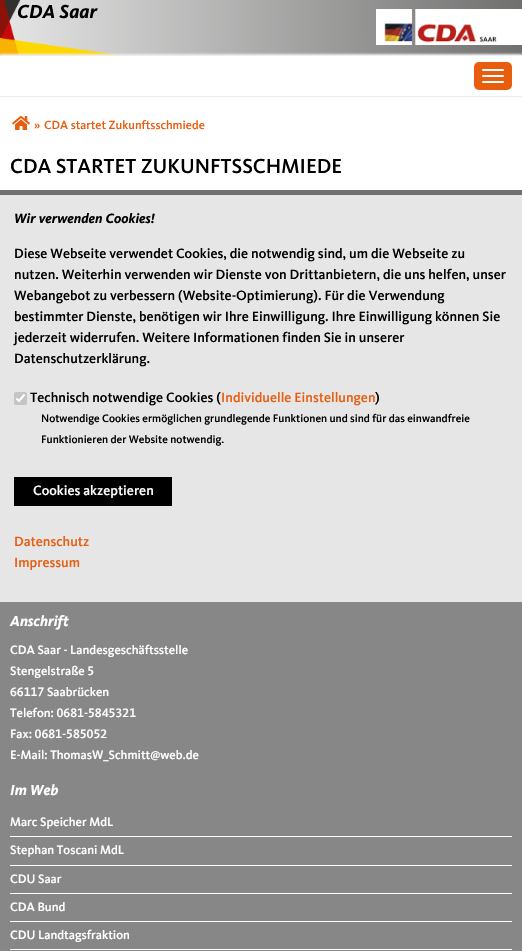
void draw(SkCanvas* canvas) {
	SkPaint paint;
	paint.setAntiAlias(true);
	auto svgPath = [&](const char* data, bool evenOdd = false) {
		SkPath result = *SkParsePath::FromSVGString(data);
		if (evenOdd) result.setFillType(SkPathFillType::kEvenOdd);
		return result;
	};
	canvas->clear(0xffffffff);
	{
		const SkColor colors[] = {0xffe6e6e6, 0xff70706f};
		const float stops[] = {0, 1};
		const SkPoint ends[] = {{0, 49}, {522, 48}};
		paint.setShader(SkGradientShader::MakeLinear(ends, colors, stops, 2, SkTileMode::kClamp));
		paint.setAlpha(255);
	}
	canvas->drawRect(SkRect::MakeXYWH(9, 0, 513, 55), paint);
	canvas->drawImageRect(SkImages::DeferredFromEncodedData(SkData::MakeFromFileName("img1.png")), SkRect::MakeXYWH(0, 0, 119, 55), SkSamplingOptions());
	SkFont f1(fontMgr->matchFamilyStyle("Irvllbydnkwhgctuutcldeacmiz", SkFontStyle::Bold()), 19.5);
	f1.setSubpixel(true);
	paint.setShader(nullptr);
	paint.setColor(0xff000000);
	canvas->drawString("CDA Saar", 17, 18, f1, paint);
	canvas->drawImageRect(SkImages::DeferredFromEncodedData(SkData::MakeFromFileName("img2.png")), SkRect::MakeXYWH(376, 9, 146, 36), SkSamplingOptions());
	paint.setColor(0xffededed);
	paint.setMaskFilter(SkMaskFilter::MakeBlur(kNormal_SkBlurStyle, 1));
	canvas->drawRect(SkRect::MakeXYWH(0, 54, 522, 42), paint);
	paint.setMaskFilter(nullptr);
	paint.setColor(0xffffffff);
	canvas->drawRect(SkRect::MakeXYWH(0, 56, 522, 40), paint);
	paint.setColor(0xffededed);
	canvas->drawRect(SkRect::MakeXYWH(0, 55, 522, 1), paint);
	canvas->drawRect(SkRect::MakeXYWH(0, 96, 522, 1), paint);
	paint.setColor(0xffe95d0f);
	canvas->drawRoundRect(SkRect::MakeXYWH(474, 62, 38, 28), 5, 5, paint);
	paint.setColor(0xffffffff);
	canvas->drawRoundRect(SkRect::MakeXYWH(482, 69, 22, 2), 1, 1, paint);
	canvas->drawRoundRect(SkRect::MakeXYWH(482, 75, 22, 2), 1, 1, paint);
	canvas->drawRoundRect(SkRect::MakeXYWH(482, 81, 22, 2), 1, 1, paint);
	canvas->drawImageRect(SkImages::DeferredFromEncodedData(SkData::MakeFromFileName("img3.png")), SkRect::MakeXYWH(12, 116, 18, 14), SkSamplingOptions());
	SkFont f2(fontMgr->matchFamilyStyle("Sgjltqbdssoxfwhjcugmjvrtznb", SkFontStyle(500, SkFontStyle::kNormal_Width, SkFontStyle::kUpright_Slant)), 12.25);
	f2.setSubpixel(true);
	paint.setColor(0xffe95d0f);
	canvas->drawString("»", 34, 129, f2, paint);
	canvas->drawString("CDA startet Zukunftsschmiede", 44, 129, f2, paint);
	SkFont f3(fontMgr->matchFamilyStyle("Sgjltqbdssoxfwhjcugmjvrtznb", SkFontStyle(500, SkFontStyle::kNormal_Width, SkFontStyle::kUpright_Slant)), 21);
	f3.setSubpixel(true);
	paint.setColor(0xff000000);
	canvas->drawString("CDA STARTET ZUKUNFTSSCHMIEDE", 10, 173, f3, paint);
	paint.setColor(0xff878787);
	canvas->drawRect(SkRect::MakeXYWH(0, 602, 522, 349), paint);
	SkFont f4(fontMgr->matchFamilyStyle("Irvllbydnkwhgctuutcldeacmiz", SkFontStyle::Bold()), 15);
	f4.setSubpixel(true);
	paint.setColor(0xffffffff);
	canvas->drawString("Anschrift", 10, 626, f4, paint);
	SkFont f5(fontMgr->matchFamilyStyle("Sgjltqbdssoxfwhjcugmjvrtznb", SkFontStyle(500, SkFontStyle::kNormal_Width, SkFontStyle::kUpright_Slant)), 12.6);
	f5.setSubpixel(true);
	canvas->drawString("CDA Saar - Landesgeschäftsstelle", 10, 654, f5, paint);
	canvas->drawString("Stengelstraße 5", 10, 675, f5, paint);
	canvas->drawString("66117 Saabrücken", 10, 696, f5, paint);
	canvas->drawString("Telefon: 0681-5845321", 10, 717, f5, paint);
	canvas->drawString("Fax: 0681-585052", 10, 738, f5, paint);
	canvas->drawString("E-Mail: ThomasW_Schmitt@web.de", 10, 759, f5, paint);
	canvas->drawString("Im Web", 10, 795, f4, paint);
	canvas->drawRect(SkRect::MakeXYWH(10, 836, 502, 1), paint);
	canvas->drawString("Marc Speicher MdL", 10, 826, f5, paint);
	canvas->drawRect(SkRect::MakeXYWH(10, 865, 502, 1), paint);
	canvas->drawString("Stephan Toscani MdL", 10, 854, f5, paint);
	canvas->drawRect(SkRect::MakeXYWH(10, 893, 502, 1), paint);
	canvas->drawString("CDU Saar", 10, 883, f5, paint);
	canvas->drawRect(SkRect::MakeXYWH(10, 921, 502, 1), paint);
	canvas->drawString("CDA Bund", 10, 911, f5, paint);
	canvas->drawRect(SkRect::MakeXYWH(10, 949, 502, 1), paint);
	canvas->drawString("CDU Landtagsfraktion", 10, 939, f5, paint);
	paint.setColor(0xffe6e6e6);
	canvas->drawRect(SkRect::MakeXYWH(0, 195, 522, 407), paint);
	paint.setColor(0xff70706f);
	canvas->drawRect(SkRect::MakeXYWH(0, 190, 522, 5), paint);
	SkFont f6(fontMgr->matchFamilyStyle("Irvllbydnkwhgctuutcldeacmiz", SkFontStyle::Bold()), 14);
	f6.setSubpixel(true);
	paint.setColor(0xff000000);
	canvas->drawString("Wir verwenden Cookies!", 14, 223, f6, paint);
	SkFont f7(fontMgr->matchFamilyStyle("Sgjltqbdssoxfwhjcugmjvrtznb", SkFontStyle(500, SkFontStyle::kNormal_Width, SkFontStyle::kUpright_Slant)), 14);
	f7.setSubpixel(true);
	canvas->drawString("Diese Webseite verwendet Cookies, die notwendig sind, um die Webseite zu", 14, 258, f7, paint);
	canvas->drawString("nutzen. Weiterhin verwenden wir Dienste von Drittanbietern, die uns helfen, unser", 14, 279, f7, paint);
	canvas->drawString("Webangebot zu verbessern (Website-Optimierung). Für die Verwendung", 14, 300, f7, paint);
	canvas->drawString("bestimmter Dienste, benötigen wir Ihre Einwilligung. Ihre Einwilligung können Sie", 14, 321, f7, paint);
	canvas->drawString("jederzeit widerrufen. Weitere Informationen finden Sie in unserer", 14, 342, f7, paint);
	canvas->drawString("Datenschutzerklärung.", 14, 363, f7, paint);
	paint.setColor(0xffc4c4c4);
	canvas->drawRoundRect(SkRect::MakeXYWH(14, 392, 13, 13), 2, 2, paint);
	paint.setStroke(true);
	paint.setStrokeWidth(2.1);
	paint.setColor(0xffffffff);
	canvas->drawPath(svgPath("M16.5 398.5L19 401L24.5 394.5"), paint);
	paint.setStroke(false);
	paint.setColor(0xff000000);
	canvas->drawString("Technisch notwendige Cookies (", 30, 402, f7, paint);
	paint.setColor(0xffe95d0f);
	canvas->drawString("Individuelle Einstellungen", 221, 402, f7, paint);
	paint.setColor(0xff000000);
	canvas->drawString(")", 375, 402, f7, paint);
	SkFont f8(fontMgr->matchFamilyStyle("Sgjltqbdssoxfwhjcugmjvrtznb", SkFontStyle(500, SkFontStyle::kNormal_Width, SkFontStyle::kUpright_Slant)), 11.2);
	f8.setSubpixel(true);
	canvas->drawString("Notwendige Cookies ermöglichen grundlegende Funktionen und sind für das einwandfreie", 41, 422, f8, paint);
	canvas->drawString("Funktionieren der Website notwendig.", 41, 443, f8, paint);
	canvas->drawRect(SkRect::MakeXYWH(14, 477, 158, 29), paint);
	paint.setColor(0xffffffff);
	canvas->drawString("Cookies akzeptieren", 33, 495, f7, paint);
	paint.setColor(0xffe95d0f);
	canvas->drawString("Datenschutz", 14, 546, f7, paint);
	canvas->drawString("Impressum", 14, 567, f7, paint);
}
